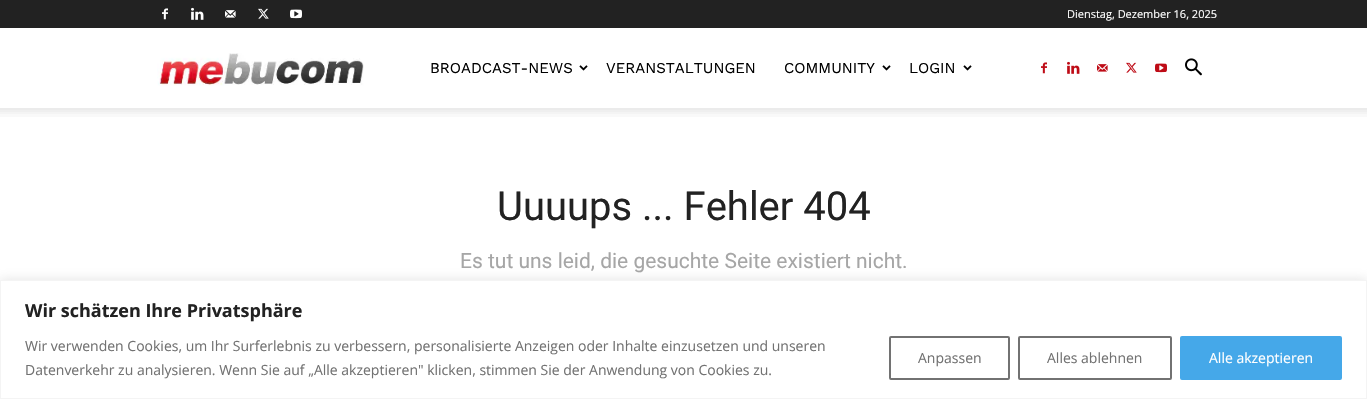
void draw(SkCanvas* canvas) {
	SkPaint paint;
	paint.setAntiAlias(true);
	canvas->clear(0xffffffff);
	paint.setColor(0xff222222);
	canvas->drawRect(SkRect::MakeXYWH(0, 0, 1367, 28), paint);
	canvas->drawImageRect(SkImages::DeferredFromEncodedData(SkData::MakeFromFileName("img1.png")), SkRect::MakeXYWH(162, 8, 6, 12), SkSamplingOptions());
	canvas->drawImageRect(SkImages::DeferredFromEncodedData(SkData::MakeFromFileName("img2.png")), SkRect::MakeXYWH(191, 7, 13, 13), SkSamplingOptions());
	canvas->drawImageRect(SkImages::DeferredFromEncodedData(SkData::MakeFromFileName("img3.png")), SkRect::MakeXYWH(225, 10, 11, 8), SkSamplingOptions());
	canvas->drawImageRect(SkImages::DeferredFromEncodedData(SkData::MakeFromFileName("img4.png")), SkRect::MakeXYWH(258, 8, 11, 11), SkSamplingOptions());
	canvas->drawImageRect(SkImages::DeferredFromEncodedData(SkData::MakeFromFileName("img5.png")), SkRect::MakeXYWH(290, 9, 12, 10), SkSamplingOptions());
	SkFont f1(fontMgr->matchFamilyStyle("Open Sans", SkFontStyle::Normal()), 11);
	f1.setSubpixel(true);
	paint.setColor(0xffffffff);
	canvas->drawString("Dienstag, Dezember 16, 2025", 1067, 18, f1, paint);
	canvas->drawImageRect(SkImages::DeferredFromEncodedData(SkData::MakeFromFileName("img6.png")), SkRect::MakeXYWH(157, 53, 207, 33), SkSamplingOptions());
	SkFont f2(fontMgr->matchFamilyStyle("Work Sans", SkFontStyle::Normal()), 15);
	f2.setSubpixel(true);
	paint.setColor(0xff000000);
	canvas->drawString("BROADCAST-NEWS", 430, 73, f2, paint);
	canvas->drawImageRect(SkImages::DeferredFromEncodedData(SkData::MakeFromFileName("img7.png")), SkRect::MakeXYWH(579, 65, 9, 6), SkSamplingOptions());
	canvas->drawString("VERANSTALTUNGEN", 606, 73, f2, paint);
	canvas->drawString("COMMUNITY", 784, 73, f2, paint);
	canvas->drawImageRect(SkImages::DeferredFromEncodedData(SkData::MakeFromFileName("img7.png")), SkRect::MakeXYWH(882, 65, 9, 6), SkSamplingOptions());
	canvas->drawString("LOGIN", 909, 73, f2, paint);
	canvas->drawImageRect(SkImages::DeferredFromEncodedData(SkData::MakeFromFileName("img7.png")), SkRect::MakeXYWH(963, 65, 9, 6), SkSamplingOptions());
	canvas->drawImageRect(SkImages::DeferredFromEncodedData(SkData::MakeFromFileName("img8.png")), SkRect::MakeXYWH(1041, 62, 6, 12), SkSamplingOptions());
	canvas->drawImageRect(SkImages::DeferredFromEncodedData(SkData::MakeFromFileName("img9.png")), SkRect::MakeXYWH(1067, 61, 13, 13), SkSamplingOptions());
	canvas->drawImageRect(SkImages::DeferredFromEncodedData(SkData::MakeFromFileName("img10.png")), SkRect::MakeXYWH(1097, 64, 11, 8), SkSamplingOptions());
	canvas->drawImageRect(SkImages::DeferredFromEncodedData(SkData::MakeFromFileName("img11.png")), SkRect::MakeXYWH(1126, 62, 11, 11), SkSamplingOptions());
	canvas->drawImageRect(SkImages::DeferredFromEncodedData(SkData::MakeFromFileName("img12.png")), SkRect::MakeXYWH(1155, 63, 12, 10), SkSamplingOptions());
	canvas->drawImageRect(SkImages::DeferredFromEncodedData(SkData::MakeFromFileName("img13.png")), SkRect::MakeXYWH(1185, 58, 17, 18), SkSamplingOptions());
	canvas->drawImageRect(SkImages::DeferredFromEncodedData(SkData::MakeFromFileName("img14.png")), SkRect::MakeXYWH(0, 108, 1367, 9), SkSamplingOptions());
	SkFont f3(fontMgr->matchFamilyStyle("Roboto", SkFontStyle::Normal()), 40);
	f3.setSubpixel(true);
	paint.setColor(0xff222222);
	canvas->drawString("Uuuups ... Fehler 404", 497, 220, f3, paint);
	SkFont f4(fontMgr->matchFamilyStyle("Roboto", SkFontStyle::Normal()), 21);
	f4.setSubpixel(true);
	paint.setColor(0xffa6a6a6);
	canvas->drawString("Es tut uns leid, die gesuchte Seite existiert nicht.", 460, 268, f4, paint);
	paint.setColor(0x4dacabab);
	paint.setMaskFilter(SkMaskFilter::MakeBlur(kNormal_SkBlurStyle, 5));
	canvas->drawRect(SkRect::MakeXYWH(0, 279, 1367, 119), paint);
	paint.setMaskFilter(nullptr);
	paint.setColor(0xffffffff);
	canvas->drawRect(SkRect::MakeXYWH(0.5, 280.5, 1366, 118), paint);
	paint.setStroke(true);
	paint.setStrokeWidth(1);
	paint.setColor(0xfff4f4f4);
	canvas->drawRect(SkRect::MakeXYWH(0.5, 280.5, 1366, 118), paint);
	SkFont f5(fontMgr->matchFamilyStyle("Open Sans", SkFontStyle::Bold()), 18);
	f5.setSubpixel(true);
	paint.setStroke(false);
	paint.setColor(0xff222222);
	canvas->drawString("Wir schätzen Ihre Privatsphäre", 25, 317, f5, paint);
	SkFont f6(fontMgr->matchFamilyStyle("Open Sans", SkFontStyle::Normal()), 14);
	f6.setSubpixel(true);
	paint.setColor(0xff727272);
	canvas->drawString("Wir verwenden Cookies, um Ihr Surferlebnis zu verbessern, personalisierte Anzeigen oder Inhalte einzusetzen und unseren", 25, 351, f6, paint);
	canvas->drawString("Datenverkehr zu analysieren. Wenn Sie auf „Alle akzeptieren\" klicken, stimmen Sie der Anwendung von Cookies zu.", 25, 375, f6, paint);
	paint.setStroke(true);
	paint.setStrokeWidth(2);
	canvas->drawRoundRect(SkRect::MakeXYWH(890, 337, 119, 42), 1, 1, paint);
	paint.setStroke(false);
	canvas->drawString("Anpassen", 918, 363, f6, paint);
	paint.setStroke(true);
	canvas->drawRoundRect(SkRect::MakeXYWH(1019, 337, 152, 42), 1, 1, paint);
	paint.setStroke(false);
	canvas->drawString("Alles ablehnen", 1047, 363, f6, paint);
	paint.setColor(0xff45a8e9);
	canvas->drawRoundRect(SkRect::MakeXYWH(1181, 337, 160, 42), 1, 1, paint);
	paint.setStroke(true);
	canvas->drawRoundRect(SkRect::MakeXYWH(1181, 337, 160, 42), 1, 1, paint);
	paint.setStroke(false);
	paint.setColor(0xffffffff);
	canvas->drawString("Alle akzeptieren", 1209, 363, f6, paint);
}
